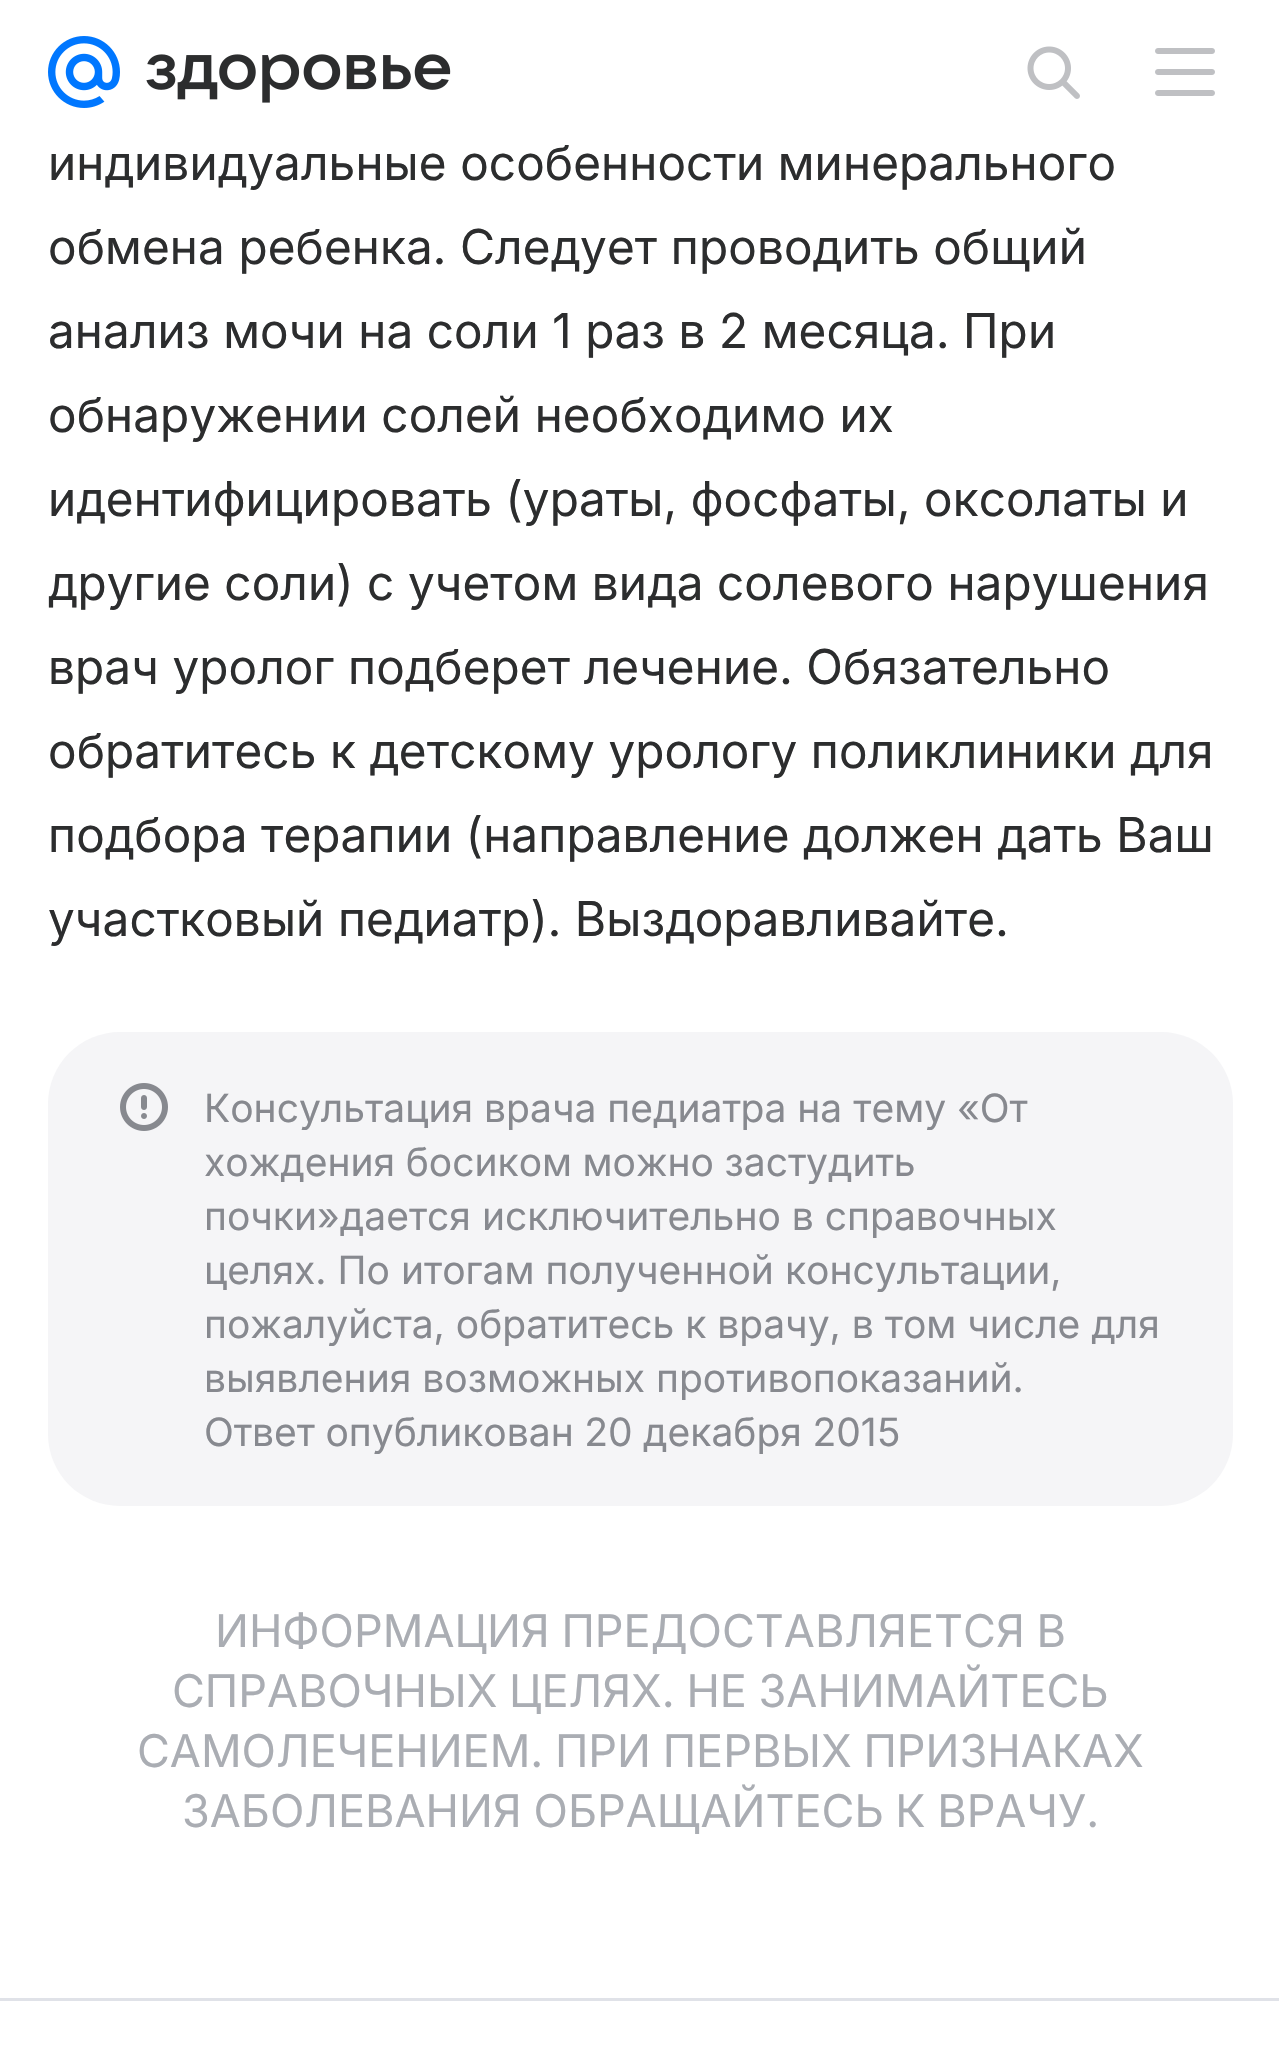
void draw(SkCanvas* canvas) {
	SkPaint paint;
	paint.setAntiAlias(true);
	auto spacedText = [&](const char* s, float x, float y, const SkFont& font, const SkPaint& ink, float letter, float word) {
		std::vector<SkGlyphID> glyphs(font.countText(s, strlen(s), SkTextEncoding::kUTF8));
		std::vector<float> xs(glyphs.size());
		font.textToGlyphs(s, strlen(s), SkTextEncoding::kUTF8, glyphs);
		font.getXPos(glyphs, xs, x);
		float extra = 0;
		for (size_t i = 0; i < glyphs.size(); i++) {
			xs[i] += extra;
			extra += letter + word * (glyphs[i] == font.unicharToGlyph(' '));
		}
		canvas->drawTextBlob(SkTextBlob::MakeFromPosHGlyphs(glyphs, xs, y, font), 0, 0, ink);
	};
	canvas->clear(0xffffffff);
	canvas->drawImageRect(SkImages::DeferredFromEncodedData(SkData::MakeFromFileName("img1.png")), SkRect::MakeXYWH(48, 36, 72, 72), SkSamplingOptions());
	canvas->drawImageRect(SkImages::DeferredFromEncodedData(SkData::MakeFromFileName("img2.png")), SkRect::MakeXYWH(146, 54, 305, 49), SkSamplingOptions());
	canvas->drawImageRect(SkImages::DeferredFromEncodedData(SkData::MakeFromFileName("img3.png")), SkRect::MakeXYWH(1027, 46, 53, 53), SkSamplingOptions());
	canvas->drawImageRect(SkImages::DeferredFromEncodedData(SkData::MakeFromFileName("img4.png")), SkRect::MakeXYWH(1155, 48, 60, 48), SkSamplingOptions());
	SkFont f1(fontMgr->matchFamilyStyle("Inter", SkFontStyle::Normal()), 48);
	f1.setSubpixel(true);
	paint.setColor(0xff2c2d2e);
	spacedText("индивидуальные особенности минерального", 48, 180, f1, paint, 0.15, 0);
	spacedText("обмена ребенка. Следует проводить общий", 48, 264, f1, paint, 0.15, 0);
	spacedText("анализ мочи на соли 1 раз в 2 месяца. При", 48, 348, f1, paint, 0.15, 0);
	spacedText("обнаружении солей необходимо их", 48, 432, f1, paint, 0.15, 0);
	spacedText("идентифицировать (ураты, фосфаты, оксолаты и", 48, 516, f1, paint, 0.15, 0);
	spacedText("другие соли) с учетом вида солевого нарушения", 48, 600, f1, paint, 0.15, 0);
	spacedText("врач уролог подберет лечение. Обязательно", 48, 684, f1, paint, 0.15, 0);
	spacedText("обратитесь к детскому урологу поликлиники для", 48, 768, f1, paint, 0.15, 0);
	spacedText("подбора терапии (направление должен дать Ваш", 48, 852, f1, paint, 0.15, 0);
	spacedText("участковый педиатр). Выздоравливайте.", 48, 936, f1, paint, 0.15, 0);
	paint.setColor(0xfff5f5f7);
	canvas->drawRoundRect(SkRect::MakeXYWH(48, 1032, 1185, 474), 72, 72, paint);
	canvas->drawImageRect(SkImages::DeferredFromEncodedData(SkData::MakeFromFileName("img5.png")), SkRect::MakeXYWH(120, 1083, 48, 48), SkSamplingOptions());
	SkFont f2(fontMgr->matchFamilyStyle("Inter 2", SkFontStyle::Normal()), 39);
	f2.setSubpixel(true);
	paint.setColor(0xff87898f);
	canvas->drawString("Консультация врача педиатра на тему «От", 204, 1122, f2, paint);
	spacedText("хождения босиком можно застудить", 204, 1176, f2, paint, 0, -0.5);
	canvas->drawString("почки»дается исключительно в справочных", 204, 1230, f2, paint);
	canvas->drawString("целях. По итогам полученной консультации,", 204, 1284, f2, paint);
	canvas->drawString("пожалуйста, обратитесь к врачу, в том числе для", 204, 1338, f2, paint);
	canvas->drawString("выявления возможных противопоказаний.", 204, 1392, f2, paint);
	spacedText("Ответ опубликован 20 декабря 2015", 204, 1446, f2, paint, 0, -0.5);
	SkFont f3(fontMgr->matchFamilyStyle("Inter 2", SkFontStyle::Normal()), 45);
	f3.setSubpixel(true);
	paint.setColor(0xffaaadb3);
	spacedText("ИНФОРМАЦИЯ ПРЕДОСТАВЛЯЕТСЯ В", 215, 1647, f3, paint, 0, -1);
	spacedText("СПРАВОЧНЫХ ЦЕЛЯХ. НЕ ЗАНИМАЙТЕСЬ", 172, 1707, f3, paint, 0, -1);
	spacedText("САМОЛЕЧЕНИЕМ. ПРИ ПЕРВЫХ ПРИЗНАКАХ", 137, 1767, f3, paint, 0, -1);
	spacedText("ЗАБОЛЕВАНИЯ ОБРАЩАЙТЕСЬ К ВРАЧУ.", 182, 1827, f3, paint, 0, -1);
	paint.setColor(0xffe0e2e8);
	canvas->drawRect(SkRect::MakeXYWH(0, 1998, 1279, 3), paint);
}
